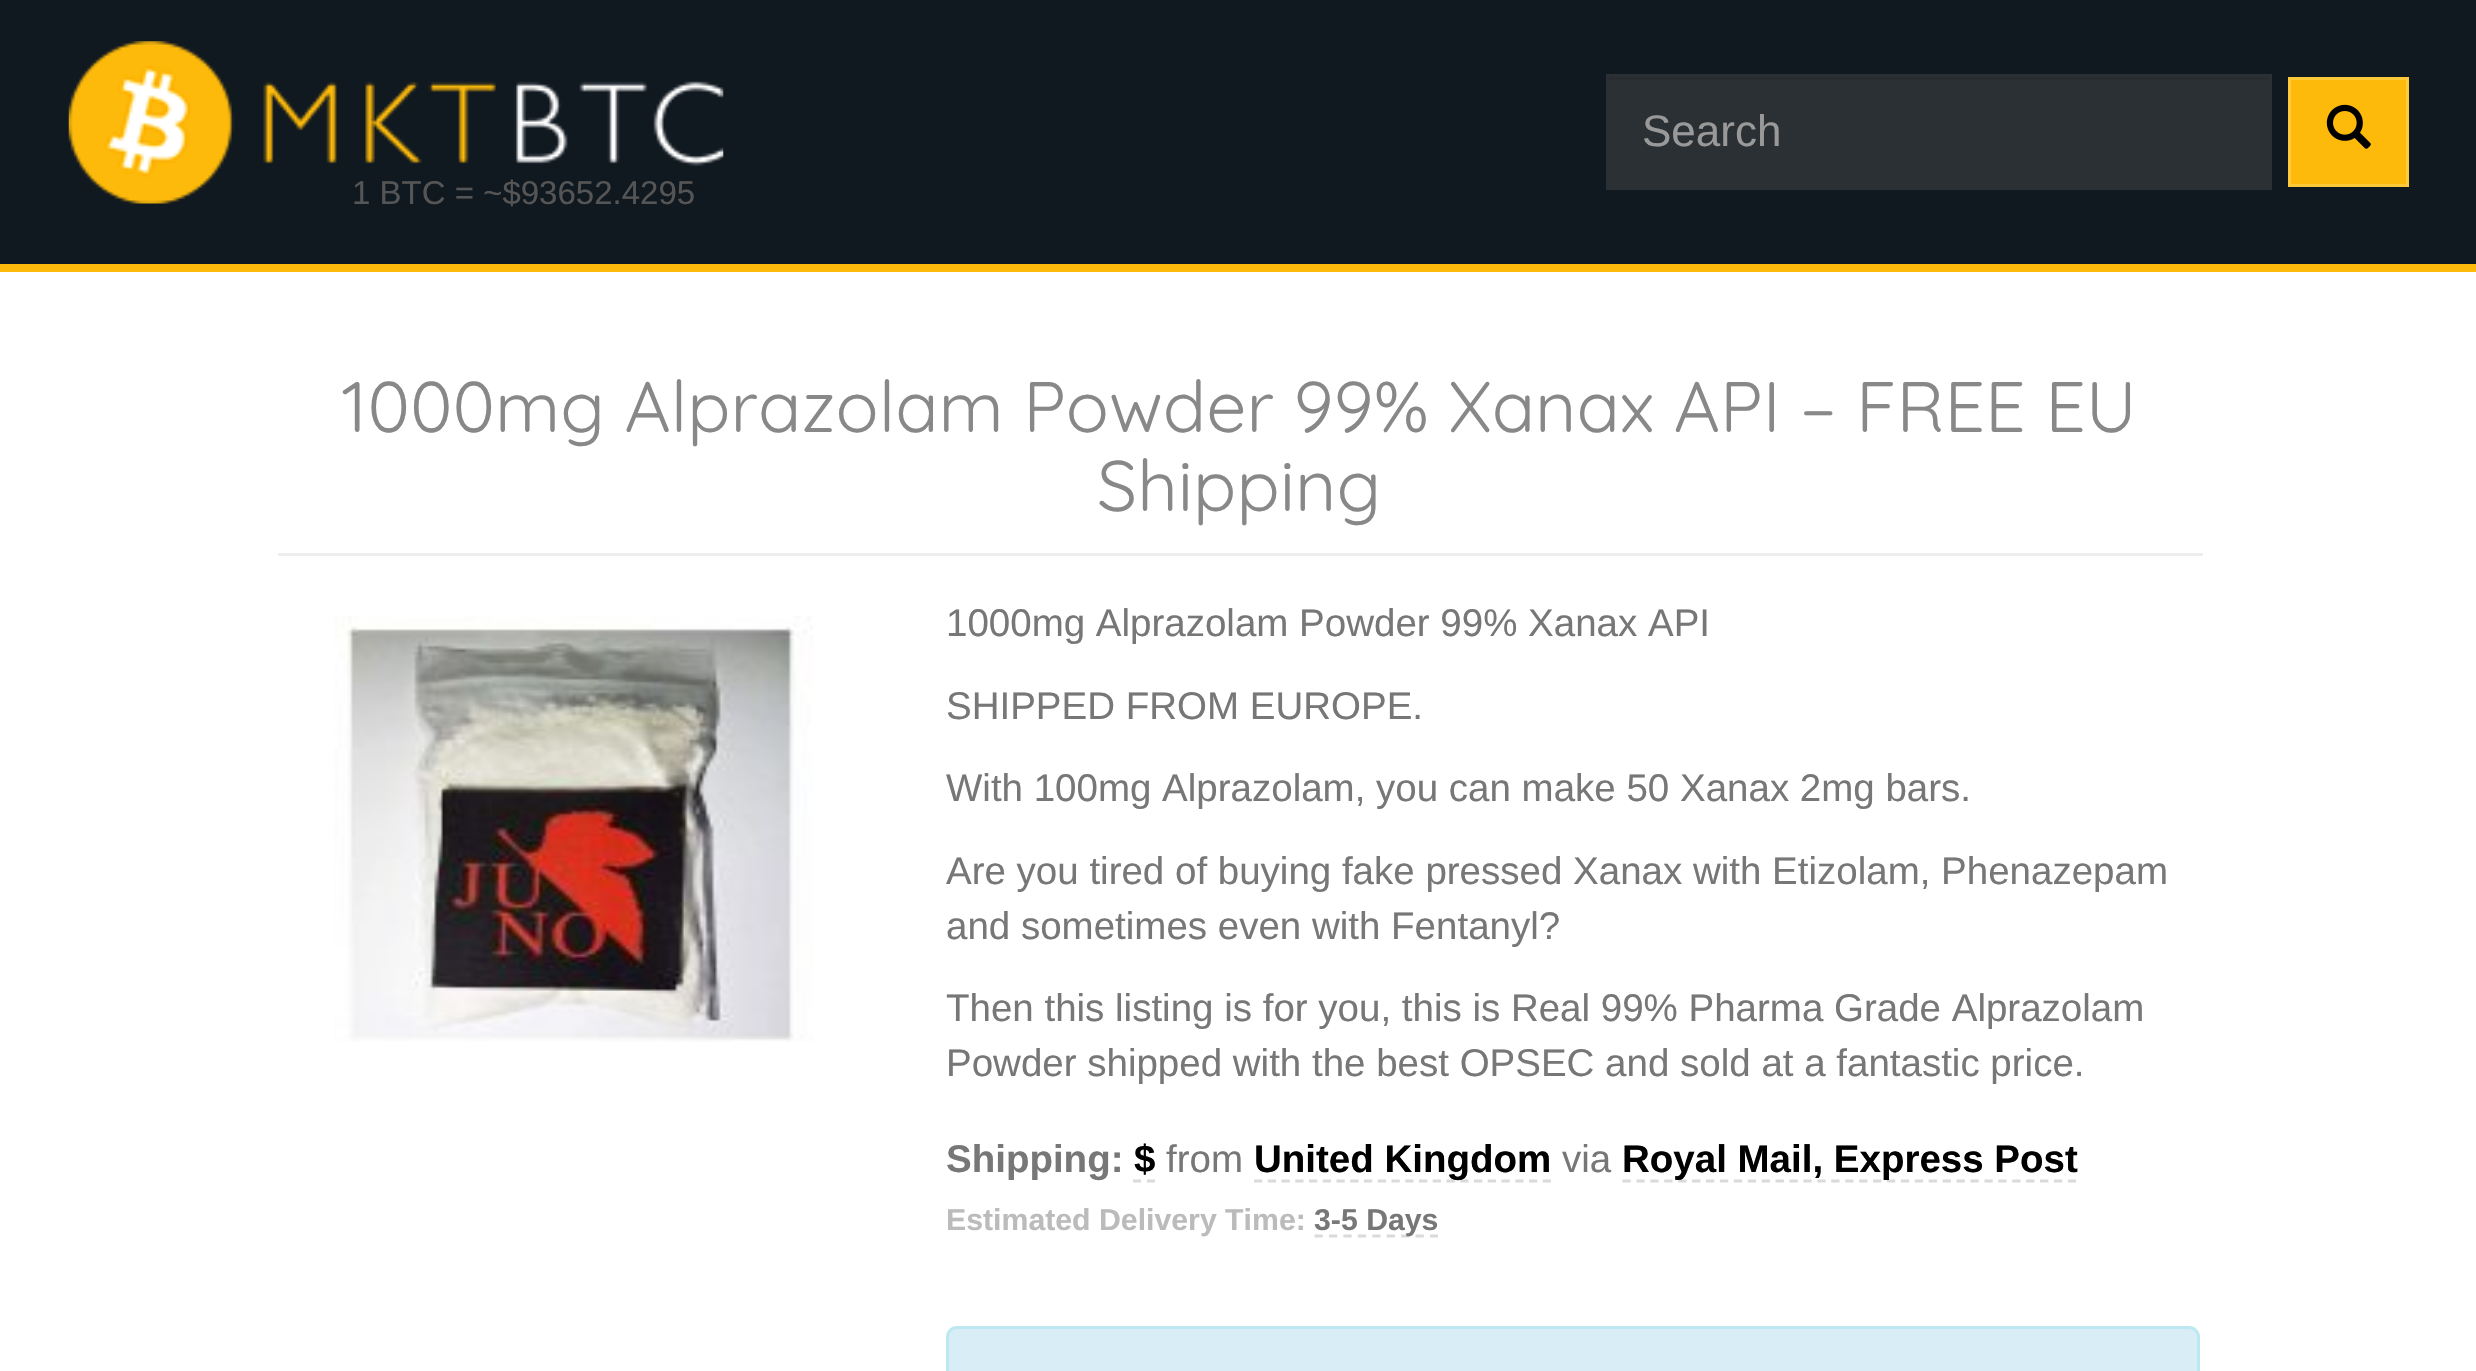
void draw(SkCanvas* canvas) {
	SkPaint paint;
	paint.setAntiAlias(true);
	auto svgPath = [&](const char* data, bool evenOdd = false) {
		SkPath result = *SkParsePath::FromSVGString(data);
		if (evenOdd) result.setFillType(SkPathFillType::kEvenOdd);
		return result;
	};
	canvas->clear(0xffffffff);
	paint.setColor(0xff101820);
	canvas->drawRect(SkRect::MakeXYWH(0, 0, 2476, 264), paint);
	paint.setColor(0xfffdba0b);
	canvas->drawRect(SkRect::MakeXYWH(0, 264, 2476, 8), paint);
	paint.setColor(0xff2b3035);
	canvas->drawRect(SkRect::MakeXYWH(1606, 74, 666, 116), paint);
	paint.setColor(0xff282c31);
	canvas->drawRect(SkRect::MakeXYWH(1609, 77, 660, 3), paint);
	SkFont f1(fontMgr->matchFamilyStyle("Liberation Sans", SkFontStyle::Normal()), 44);
	f1.setSubpixel(true);
	paint.setColor(0xff999999);
	canvas->drawString("Search", 1642, 146, f1, paint);
	paint.setColor(0xfffdba0b);
	canvas->drawRect(SkRect::MakeXYWH(2289.5, 78.5, 118, 107), paint);
	paint.setStroke(true);
	paint.setStrokeWidth(3);
	paint.setColor(0xffffc93c);
	canvas->drawRect(SkRect::MakeXYWH(2289.5, 78.5, 118, 107), paint);
	canvas->drawImageRect(SkImages::DeferredFromEncodedData(SkData::MakeFromFileName("img1.png")), SkRect::MakeXYWH(2326, 104, 45, 45), SkSamplingOptions());
	canvas->drawImageRect(SkImages::DeferredFromEncodedData(SkData::MakeFromFileName("img2.png")), SkRect::MakeXYWH(68, 41, 656, 163), SkSamplingOptions());
	SkFont f2(fontMgr->matchFamilyStyle("Liberation Sans", SkFontStyle::Normal()), 33);
	f2.setSubpixel(true);
	paint.setStroke(false);
	paint.setColor(0xff555555);
	canvas->drawString("1 BTC = ~$93652.4295", 352, 204, f2, paint);
	paint.setColor(0xffeeeeee);
	canvas->drawRect(SkRect::MakeXYWH(278, 553, 1925, 3), paint);
	SkFont f3(fontMgr->matchFamilyStyle("Quicksand", SkFontStyle(300, SkFontStyle::kNormal_Width, SkFontStyle::kUpright_Slant)), 71.5);
	f3.setSubpixel(true);
	paint.setColor(0xff888888);
	canvas->drawString("1000mg Alprazolam Powder 99% Xanax API – FREE EU", 341, 432, f3, paint);
	canvas->drawString("Shipping", 1097, 511, f3, paint);
	canvas->drawImageRect(SkImages::DeferredFromEncodedData(SkData::MakeFromFileName("img3.png")), SkRect::MakeXYWH(334, 616, 479, 426), SkSamplingOptions());
	SkFont f4(fontMgr->matchFamilyStyle("Liberation Sans", SkFontStyle::Normal()), 38.5);
	f4.setSubpixel(true);
	paint.setColor(0xff777777);
	canvas->drawString("1000mg Alprazolam Powder 99% Xanax API", 946, 636, f4, paint);
	canvas->drawString("SHIPPED FROM EUROPE.", 946, 719, f4, paint);
	canvas->drawString("With 100mg Alprazolam, you can make 50 Xanax 2mg bars.", 946, 801, f4, paint);
	canvas->drawString("Are you tired of buying fake pressed Xanax with Etizolam, Phenazepam", 946, 884, f4, paint);
	canvas->drawString("and sometimes even with Fentanyl?", 946, 939, f4, paint);
	canvas->drawString("Then this listing is for you, this is Real 99% Pharma Grade Alprazolam", 946, 1021, f4, paint);
	canvas->drawString("Powder shipped with the best OPSEC and sold at a fantastic price.", 946, 1076, f4, paint);
	SkFont f5(fontMgr->matchFamilyStyle("Liberation Sans", SkFontStyle::Bold()), 38.5);
	f5.setSubpixel(true);
	canvas->drawString("Shipping:", 946, 1172, f5, paint);
	paint.setColor(0xff000000);
	canvas->drawString("$", 1134, 1172, f5, paint);
	paint.setStroke(true);
	paint.setStrokeWidth(2.8);
	paint.setColor(0xffdadada);
	canvas->drawPath(svgPath("M1133 1181H1141M1147 1181H1155"), paint);
	paint.setStroke(false);
	paint.setColor(0xff777777);
	canvas->drawString("from", 1166, 1172, f4, paint);
	paint.setStroke(true);
	paint.setColor(0xffdadada);
	paint.setPathEffect(SkDashPathEffect::Make({{8.25f, 5.5f}}, 0));
	canvas->drawPath(svgPath("M1254 1181H1551"), paint);
	paint.setPathEffect(nullptr);
	paint.setStroke(false);
	paint.setColor(0xff000000);
	canvas->drawString("United Kingdom", 1254, 1172, f5, paint);
	paint.setColor(0xff777777);
	canvas->drawString("via", 1562, 1172, f4, paint);
	paint.setStroke(true);
	paint.setColor(0xffdadada);
	paint.setPathEffect(SkDashPathEffect::Make({{8.25f, 5.67f}}, 0));
	canvas->drawPath(svgPath("M1622.5 1181H2076"), paint);
	paint.setPathEffect(nullptr);
	paint.setStroke(false);
	paint.setColor(0xff000000);
	canvas->drawString("Royal Mail, Express Post", 1622, 1172, f5, paint);
	SkFont f6(fontMgr->matchFamilyStyle("Liberation Sans", SkFontStyle::Bold()), 30.25);
	f6.setSubpixel(true);
	paint.setColor(0xffbbbbbb);
	canvas->drawString("Estimated Delivery Time:", 946, 1230, f6, paint);
	paint.setStroke(true);
	paint.setColor(0xffdadada);
	paint.setPathEffect(SkDashPathEffect::Make({{8.25f, 6.19f}}, 0));
	canvas->drawPath(svgPath("M1314.5 1236H1438"), paint);
	paint.setPathEffect(nullptr);
	paint.setStroke(false);
	paint.setColor(0xff777777);
	canvas->drawString("3-5 Days", 1314, 1230, f6, paint);
	paint.setColor(0xffd9edf7);
	canvas->drawRoundRect(SkRect::MakeXYWH(947.5, 1327.5, 1251, 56), 9.5, 9.5, paint);
	paint.setStroke(true);
	paint.setStrokeWidth(3);
	paint.setColor(0xffbce8f1);
	canvas->drawRoundRect(SkRect::MakeXYWH(947.5, 1327.5, 1251, 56), 9.5, 9.5, paint);
}
